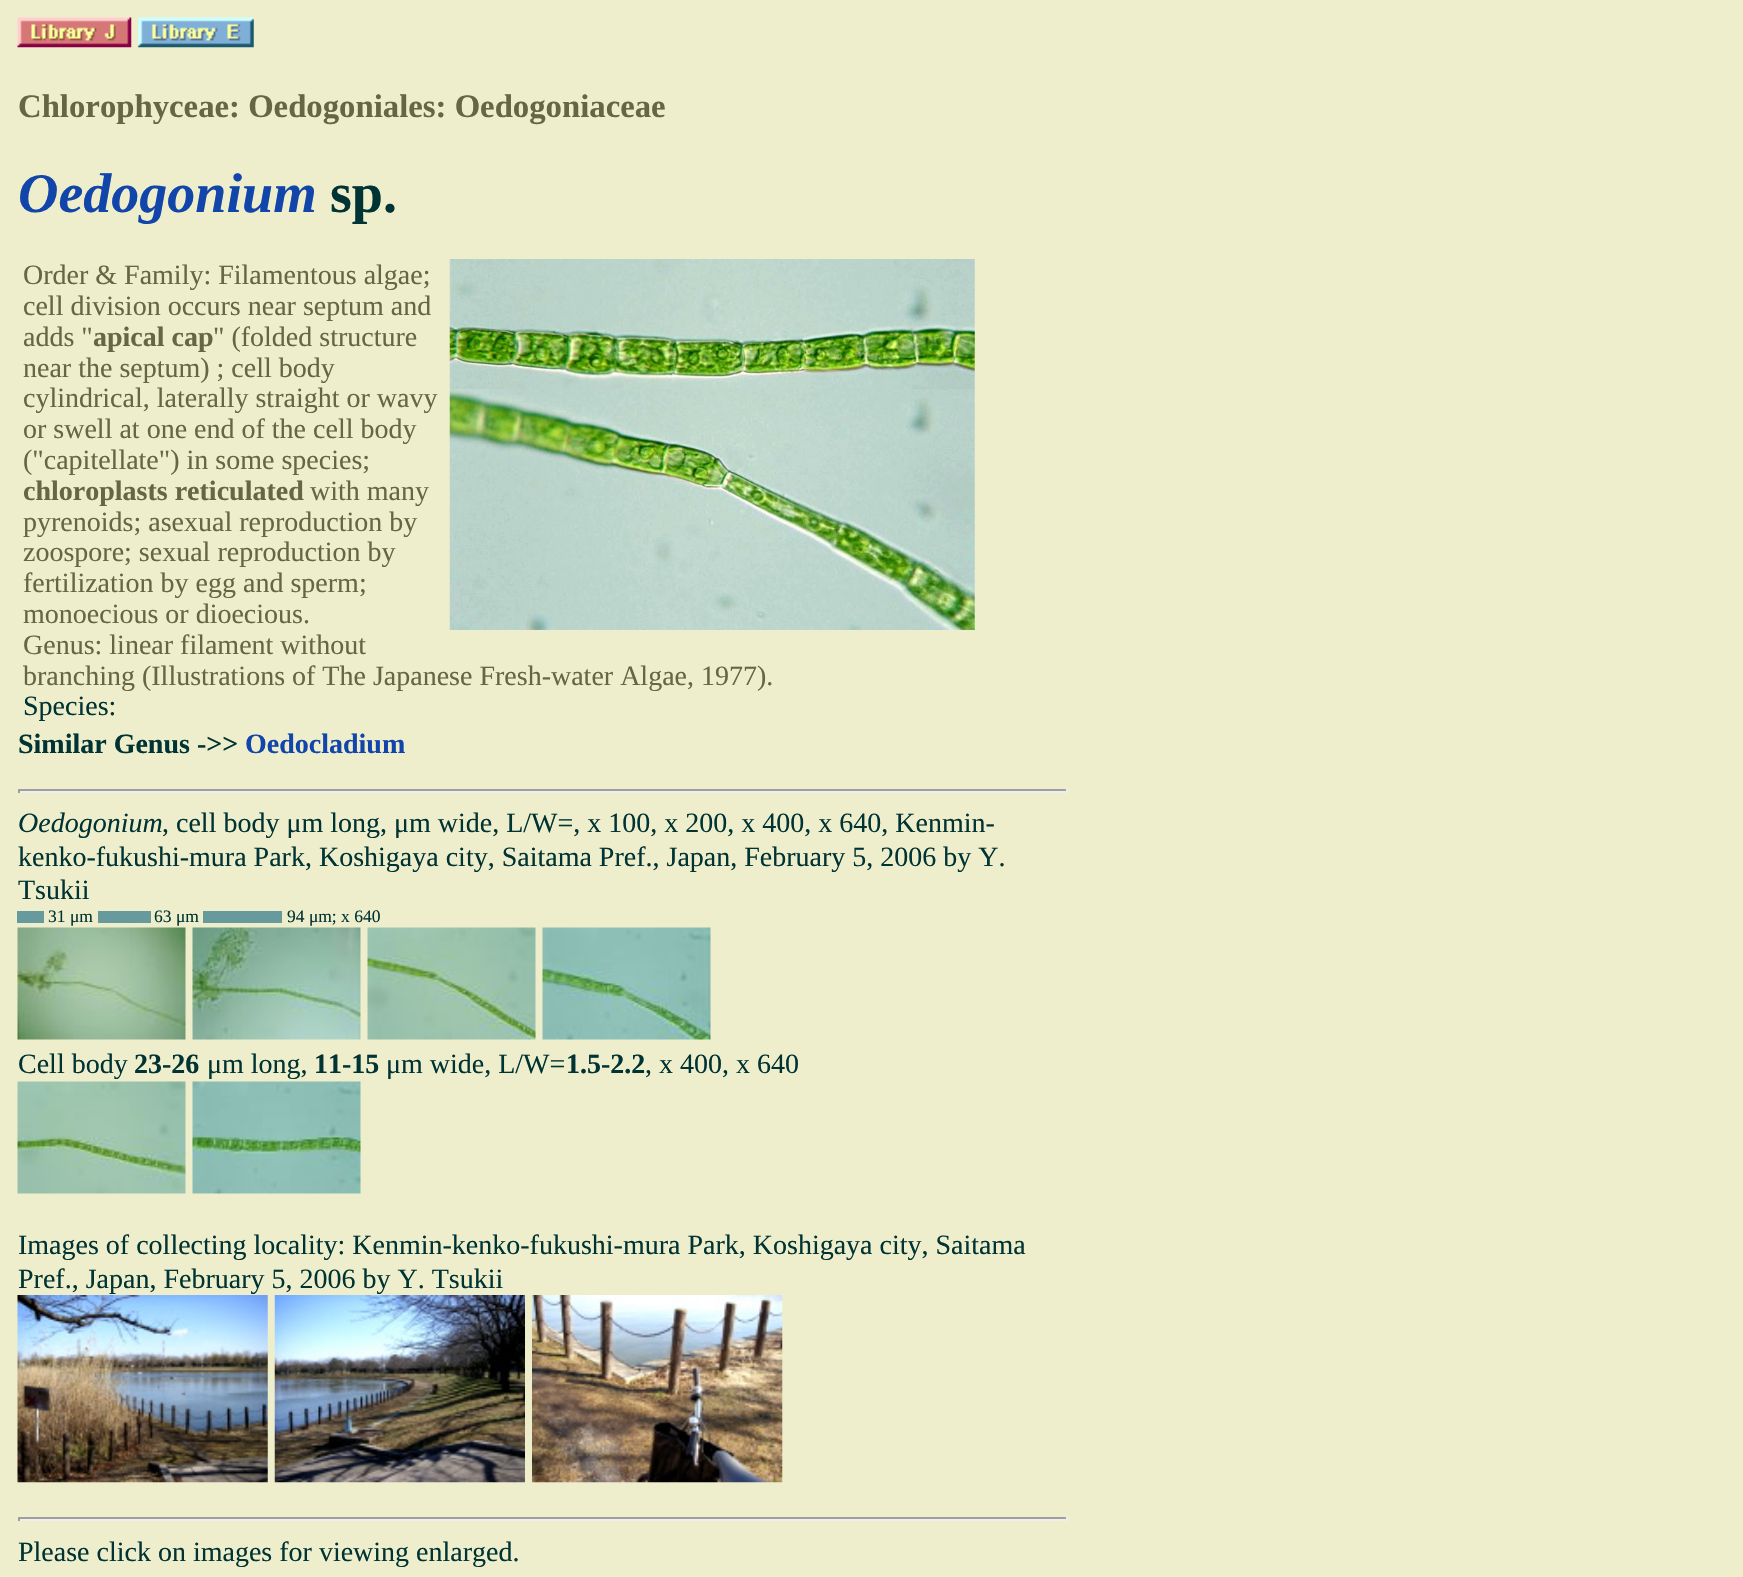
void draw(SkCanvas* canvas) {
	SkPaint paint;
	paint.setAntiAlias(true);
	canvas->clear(0xffeeeecc);
	canvas->drawImageRect(SkImages::DeferredFromEncodedData(SkData::MakeFromFileName("img1.png")), SkRect::MakeXYWH(17, 17, 115, 31), SkSamplingOptions());
	canvas->drawImageRect(SkImages::DeferredFromEncodedData(SkData::MakeFromFileName("img2.png")), SkRect::MakeXYWH(138, 17, 116, 31), SkSamplingOptions());
	SkFont f1(fontMgr->matchFamilyStyle("Liberation Serif", SkFontStyle::Bold()), 32.75);
	f1.setSubpixel(true);
	paint.setColor(0xff666644);
	canvas->drawString("Chlorophyceae: Oedogoniales: Oedogoniaceae", 18, 117, f1, paint);
	SkFont f2(fontMgr->matchFamilyStyle("Liberation Serif", SkFontStyle::BoldItalic()), 56);
	f2.setSubpixel(true);
	paint.setColor(0xff1245a9);
	canvas->drawString("Oedogonium", 18, 212, f2, paint);
	SkFont f3(fontMgr->matchFamilyStyle("Liberation Serif", SkFontStyle::Bold()), 56);
	f3.setSubpixel(true);
	paint.setColor(0xff003333);
	canvas->drawString("sp.", 330, 212, f3, paint);
	SkFont f4(fontMgr->matchFamilyStyle("Liberation Serif", SkFontStyle::Normal()), 28);
	f4.setSubpixel(true);
	paint.setColor(0xff666644);
	canvas->drawString("Order & Family: Filamentous algae;", 23, 284, f4, paint);
	canvas->drawImageRect(SkImages::DeferredFromEncodedData(SkData::MakeFromFileName("img3.png")), SkRect::MakeXYWH(449, 259, 526, 371), SkSamplingOptions());
	canvas->drawString("cell division occurs near septum and", 23, 315, f4, paint);
	canvas->drawString("adds \"", 23, 346, f4, paint);
	SkFont f5(fontMgr->matchFamilyStyle("Liberation Serif", SkFontStyle::Bold()), 28);
	f5.setSubpixel(true);
	canvas->drawString("apical cap", 93, 346, f5, paint);
	canvas->drawString("\" (folded structure", 213, 346, f4, paint);
	canvas->drawString("near the septum) ; cell body", 23, 377, f4, paint);
	canvas->drawString("cylindrical, laterally straight or wavy", 23, 407, f4, paint);
	canvas->drawString("or swell at one end of the cell body", 23, 438, f4, paint);
	canvas->drawString("(\"capitellate\") in some species;", 23, 469, f4, paint);
	canvas->drawString("chloroplasts reticulated", 23, 500, f5, paint);
	canvas->drawString("with many", 310, 500, f4, paint);
	canvas->drawString("pyrenoids; asexual reproduction by", 23, 531, f4, paint);
	canvas->drawString("zoospore; sexual reproduction by", 23, 561, f4, paint);
	canvas->drawString("fertilization by egg and sperm;", 23, 592, f4, paint);
	canvas->drawString("monoecious or dioecious.", 23, 623, f4, paint);
	canvas->drawString("Genus: linear filament without", 23, 654, f4, paint);
	canvas->drawString("branching (Illustrations of The Japanese Fresh-water Algae, 1977).", 23, 685, f4, paint);
	paint.setColor(0xff003333);
	canvas->drawString("Species:", 23, 715, f4, paint);
	canvas->drawString("Similar Genus ->>", 18, 753, f5, paint);
	paint.setColor(0xff1245a9);
	canvas->drawString("Oedocladium", 245, 753, f5, paint);
	paint.setColor(0xff9f9f9f);
	canvas->drawRect(SkRect::MakeXYWH(18, 789, 1050, 2), paint);
	paint.setColor(0xffeeeeee);
	canvas->drawRect(SkRect::MakeXYWH(1066, 789, 2, 4), paint);
	canvas->drawRect(SkRect::MakeXYWH(18, 791, 1050, 2), paint);
	paint.setColor(0xff9f9f9f);
	canvas->drawRect(SkRect::MakeXYWH(18, 789, 2, 4), paint);
	SkFont f6(fontMgr->matchFamilyStyle("Liberation Serif", SkFontStyle::Italic()), 28);
	f6.setSubpixel(true);
	paint.setColor(0xff003333);
	canvas->drawString("Oedogonium", 18, 832, f6, paint);
	canvas->drawString(", cell body μm long, μm wide, L/W=, x 100, x 200, x 400, x 640, Kenmin-", 162, 832, f4, paint);
	canvas->drawString("kenko-fukushi-mura Park, Koshigaya city, Saitama Pref., Japan, February 5, 2006 by Y.", 18, 866, f4, paint);
	canvas->drawString("Tsukii", 18, 899, f4, paint);
	SkFont f7(fontMgr->matchFamilyStyle("Liberation Serif", SkFontStyle::Normal()), 17.5);
	f7.setSubpixel(true);
	canvas->drawString("31 μm", 48, 922, f7, paint);
	paint.setColor(0xff679a9d);
	canvas->drawRect(SkRect::MakeXYWH(17, 911, 27, 12), paint);
	paint.setColor(0xff003333);
	canvas->drawString("63 μm", 154, 922, f7, paint);
	paint.setColor(0xff679a9d);
	canvas->drawRect(SkRect::MakeXYWH(98, 911, 53, 12), paint);
	canvas->drawRect(SkRect::MakeXYWH(203, 911, 79, 12), paint);
	paint.setColor(0xff003333);
	canvas->drawString("94 μm; x 640", 287, 922, f7, paint);
	canvas->drawImageRect(SkImages::DeferredFromEncodedData(SkData::MakeFromFileName("img4.png")), SkRect::MakeXYWH(17, 927, 169, 113), SkSamplingOptions());
	canvas->drawImageRect(SkImages::DeferredFromEncodedData(SkData::MakeFromFileName("img5.png")), SkRect::MakeXYWH(192, 927, 169, 113), SkSamplingOptions());
	canvas->drawImageRect(SkImages::DeferredFromEncodedData(SkData::MakeFromFileName("img6.png")), SkRect::MakeXYWH(367, 927, 169, 113), SkSamplingOptions());
	canvas->drawImageRect(SkImages::DeferredFromEncodedData(SkData::MakeFromFileName("img7.png")), SkRect::MakeXYWH(542, 927, 169, 113), SkSamplingOptions());
	canvas->drawString("Cell body", 18, 1073, f4, paint);
	canvas->drawString("23-26", 134, 1073, f5, paint);
	canvas->drawString("μm long,", 207, 1073, f4, paint);
	canvas->drawString("11-15", 314, 1073, f5, paint);
	canvas->drawString("μm wide, L/W=", 386, 1073, f4, paint);
	canvas->drawString("1.5-2.2", 566, 1073, f5, paint);
	canvas->drawString(", x 400, x 640", 645, 1073, f4, paint);
	canvas->drawImageRect(SkImages::DeferredFromEncodedData(SkData::MakeFromFileName("img8.png")), SkRect::MakeXYWH(17, 1081, 169, 113), SkSamplingOptions());
	canvas->drawImageRect(SkImages::DeferredFromEncodedData(SkData::MakeFromFileName("img9.png")), SkRect::MakeXYWH(192, 1081, 169, 113), SkSamplingOptions());
	canvas->drawString("Images of collecting locality: Kenmin-kenko-fukushi-mura Park, Koshigaya city, Saitama", 18, 1254, f4, paint);
	canvas->drawString("Pref., Japan, February 5, 2006 by Y. Tsukii", 18, 1288, f4, paint);
	canvas->drawImageRect(SkImages::DeferredFromEncodedData(SkData::MakeFromFileName("img10.png")), SkRect::MakeXYWH(17, 1295, 251, 188), SkSamplingOptions());
	canvas->drawImageRect(SkImages::DeferredFromEncodedData(SkData::MakeFromFileName("img11.png")), SkRect::MakeXYWH(274, 1295, 251, 188), SkSamplingOptions());
	canvas->drawImageRect(SkImages::DeferredFromEncodedData(SkData::MakeFromFileName("img12.png")), SkRect::MakeXYWH(532, 1295, 251, 188), SkSamplingOptions());
	paint.setColor(0xff9f9f9f);
	canvas->drawRect(SkRect::MakeXYWH(18, 1517, 1050, 2), paint);
	paint.setColor(0xffeeeeee);
	canvas->drawRect(SkRect::MakeXYWH(1066, 1517, 2, 4), paint);
	canvas->drawRect(SkRect::MakeXYWH(18, 1519, 1050, 2), paint);
	paint.setColor(0xff9f9f9f);
	canvas->drawRect(SkRect::MakeXYWH(18, 1517, 2, 4), paint);
	paint.setColor(0xff003333);
	canvas->drawString("Please click on images for viewing enlarged.", 18, 1561, f4, paint);
}
